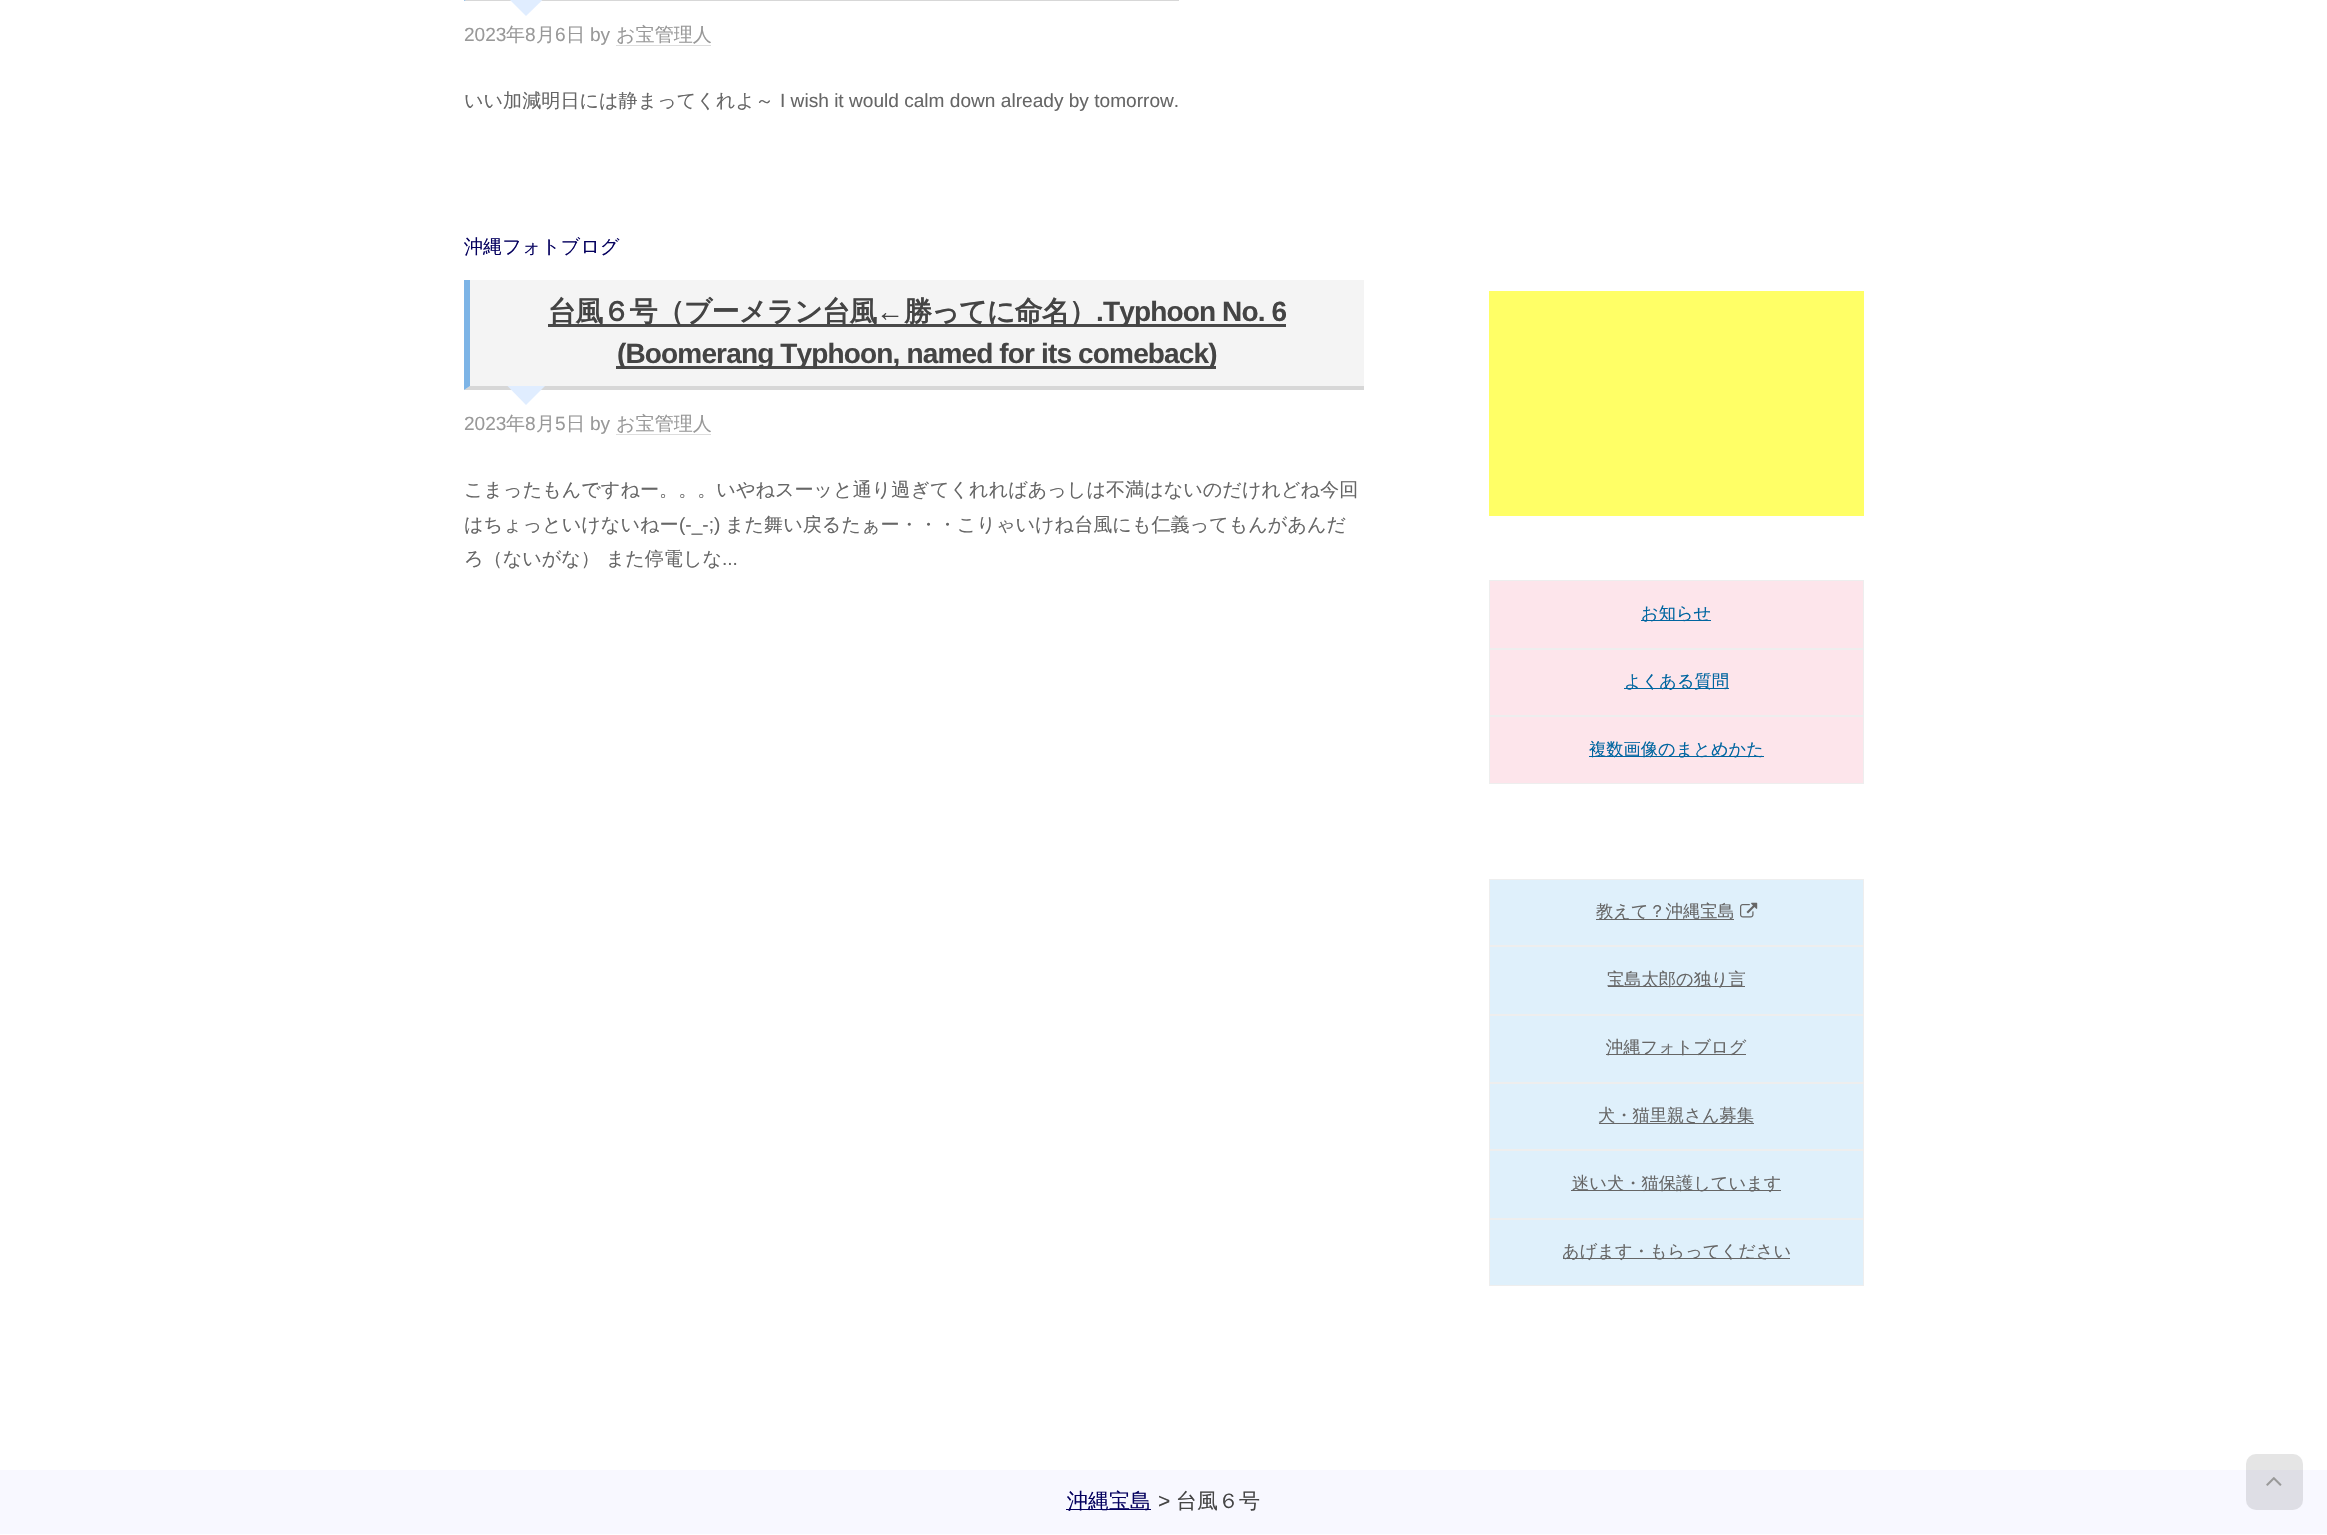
void draw(SkCanvas* canvas) {
	SkPaint paint;
	paint.setAntiAlias(true);
	auto spacedText = [&](const char* s, float x, float y, const SkFont& font, const SkPaint& ink, float letter, float word) {
		std::vector<SkGlyphID> glyphs(font.countText(s, strlen(s), SkTextEncoding::kUTF8));
		std::vector<float> xs(glyphs.size());
		font.textToGlyphs(s, strlen(s), SkTextEncoding::kUTF8, glyphs);
		font.getXPos(glyphs, xs, x);
		float extra = 0;
		for (size_t i = 0; i < glyphs.size(); i++) {
			xs[i] += extra;
			extra += letter + word * (glyphs[i] == font.unicharToGlyph(' '));
		}
		canvas->drawTextBlob(SkTextBlob::MakeFromPosHGlyphs(glyphs, xs, y, font), 0, 0, ink);
	};
	auto svgPath = [&](const char* data, bool evenOdd = false) {
		SkPath result = *SkParsePath::FromSVGString(data);
		if (evenOdd) result.setFillType(SkPathFillType::kEvenOdd);
		return result;
	};
	canvas->clear(0xffffffff);
	paint.setColor(0xffd7d7d7);
	canvas->drawPath(svgPath("M1179 1H464L470-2H1179Z"), paint);
	paint.setColor(0xff7db4e6);
	canvas->drawPath(svgPath("M464 1V-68H470V-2Z"), paint);
	paint.setColor(0xffe0edff);
	canvas->drawPath(svgPath("M507.5-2.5H545L526 16Z"), paint);
	SkFont f1(fontMgr->matchFamilyStyle("Liberation Sans", SkFontStyle::Normal()), 19.1);
	f1.setSubpixel(true);
	paint.setColor(0xff999999);
	canvas->drawString("2023", 464, 41, f1, paint);
	SkFont f2(fontMgr->matchFamilyStyle("WenQuanYi Zen Hei", SkFontStyle(500, SkFontStyle::kNormal_Width, SkFontStyle::kUpright_Slant)), 19.1);
	f2.setSubpixel(true);
	canvas->drawString("年", 506, 41, f2, paint);
	canvas->drawString("8", 525, 41, f1, paint);
	canvas->drawString("月", 536, 41, f2, paint);
	canvas->drawString("6", 555, 41, f1, paint);
	canvas->drawString("日", 566, 41, f2, paint);
	canvas->drawString("by", 590, 41, f1, paint);
	canvas->drawString("お宝管理人", 616, 41, f2, paint);
	paint.setColor(0xffdddddd);
	canvas->drawRect(SkRect::MakeXYWH(616, 45, 95, 1), paint);
	paint.setColor(0xff666666);
	canvas->drawString("いい加減明日には静まってくれよ～", 464, 107, f2, paint);
	canvas->drawString("I wish it would calm down already by tomorrow.", 780, 107, f1, paint);
	paint.setColor(0xff04005e);
	canvas->drawString("沖縄フォトブログ", 464, 253, f2, paint);
	paint.setColor(0xfff4f4f4);
	canvas->drawRect(SkRect::MakeXYWH(464, 280, 900, 110), paint);
	paint.setColor(0xffd7d7d7);
	canvas->drawPath(svgPath("M1364 390H464L470 386H1364Z"), paint);
	paint.setColor(0xff7db4e6);
	canvas->drawPath(svgPath("M464 390V280H470V386Z"), paint);
	paint.setColor(0xff494949);
	canvas->drawRect(SkRect::MakeXYWH(548, 324, 738, 3), paint);
	SkFont f3(fontMgr->matchFamilyStyle("WenQuanYi Zen Hei", SkFontStyle::Bold()), 28);
	f3.setSubpixel(true);
	paint.setColor(0xff444444);
	spacedText("台風６号（ブーメラン台風", 548, 321, f3, paint, -0.85, 0);
	SkFont f4(fontMgr->matchFamilyStyle("Liberation Sans", SkFontStyle::Bold()), 28);
	f4.setSubpixel(true);
	spacedText("←", 876, 321, f4, paint, -0.85, 0);
	spacedText("勝ってに命名）", 904, 321, f3, paint, -0.85, 0);
	spacedText(".Typhoon No. 6", 1096, 321, f4, paint, -0.85, 0);
	paint.setColor(0xff494949);
	canvas->drawRect(SkRect::MakeXYWH(616, 366, 600, 3), paint);
	paint.setColor(0xff444444);
	spacedText("(Boomerang Typhoon, named for its comeback)", 617, 363, f4, paint, -0.85, 0);
	paint.setColor(0xffe0edff);
	canvas->drawPath(svgPath("M507.5 386H545L526 405Z"), paint);
	paint.setColor(0xff999999);
	canvas->drawString("2023", 464, 430, f1, paint);
	canvas->drawString("年", 506, 430, f2, paint);
	canvas->drawString("8", 525, 430, f1, paint);
	canvas->drawString("月", 536, 430, f2, paint);
	canvas->drawString("5", 555, 430, f1, paint);
	canvas->drawString("日", 566, 430, f2, paint);
	canvas->drawString("by", 590, 430, f1, paint);
	canvas->drawString("お宝管理人", 616, 430, f2, paint);
	paint.setColor(0xffdddddd);
	canvas->drawRect(SkRect::MakeXYWH(616, 434, 95, 1), paint);
	paint.setColor(0xff666666);
	canvas->drawString("こまったもんですねー。。。いやねスーッと通り過ぎてくれればあっしは不満はないのだけれどね今回", 464, 496, f2, paint);
	canvas->drawString("はちょっといけないねー", 464, 531, f2, paint);
	canvas->drawString("(-_-;)", 679, 531, f1, paint);
	canvas->drawString("また舞い戻るたぁー・・・こりゃいけね台風にも仁義ってもんがあんだ", 725, 531, f2, paint);
	canvas->drawString("ろ（ないがな） また停電しな", 464, 565, f2, paint);
	canvas->drawString("...", 722, 565, f1, paint);
	paint.setColor(0xffffff66);
	canvas->drawRect(SkRect::MakeXYWH(1489, 291, 375, 225), paint);
	paint.setColor(0xfffde5eb);
	canvas->drawRect(SkRect::MakeXYWH(1490, 581, 373, 202), paint);
	paint.setStroke(true);
	paint.setStrokeWidth(1);
	paint.setColor(0xffeeeeee);
	canvas->drawRect(SkRect::MakeXYWH(1489.5, 580.5, 374, 68), paint);
	paint.setStroke(false);
	paint.setColor(0xff0065a0);
	canvas->drawRect(SkRect::MakeXYWH(1641, 620, 70, 1), paint);
	SkFont f5(fontMgr->matchFamilyStyle("WenQuanYi Zen Hei", SkFontStyle(500, SkFontStyle::kNormal_Width, SkFontStyle::kUpright_Slant)), 17.25);
	f5.setSubpixel(true);
	canvas->drawString("お知らせ", 1641, 619, f5, paint);
	paint.setStroke(true);
	paint.setColor(0xffeeeeee);
	canvas->drawRect(SkRect::MakeXYWH(1489.5, 649.5, 374, 66), paint);
	paint.setStroke(false);
	paint.setColor(0xff0065a0);
	canvas->drawRect(SkRect::MakeXYWH(1624, 688, 105, 1), paint);
	canvas->drawString("よくある質問", 1624, 687, f5, paint);
	paint.setStroke(true);
	paint.setColor(0xffeeeeee);
	canvas->drawRect(SkRect::MakeXYWH(1489.5, 716.5, 374, 67), paint);
	paint.setStroke(false);
	paint.setColor(0xff0065a0);
	canvas->drawRect(SkRect::MakeXYWH(1589, 756, 175, 1), paint);
	canvas->drawString("複数画像のまとめかた", 1589, 755, f5, paint);
	paint.setColor(0xffdff0fb);
	canvas->drawRect(SkRect::MakeXYWH(1490, 880, 373, 405), paint);
	paint.setStroke(true);
	paint.setColor(0xffeeeeee);
	canvas->drawRect(SkRect::MakeXYWH(1489.5, 879.5, 374, 66), paint);
	paint.setStroke(false);
	paint.setColor(0xff666666);
	canvas->drawRect(SkRect::MakeXYWH(1596, 919, 138, 1), paint);
	canvas->drawString("教えて？沖縄宝島", 1596, 917, f5, paint);
	canvas->drawImageRect(SkImages::DeferredFromEncodedData(SkData::MakeFromFileName("img1.png")), SkRect::MakeXYWH(1740, 902, 18, 16), SkSamplingOptions());
	paint.setStroke(true);
	paint.setColor(0xffeeeeee);
	canvas->drawRect(SkRect::MakeXYWH(1489.5, 946.5, 374, 68), paint);
	paint.setStroke(false);
	paint.setColor(0xff666666);
	canvas->drawRect(SkRect::MakeXYWH(1608, 986, 137, 1), paint);
	canvas->drawString("宝島太郎の独り言", 1607, 985, f5, paint);
	paint.setStroke(true);
	paint.setColor(0xffeeeeee);
	canvas->drawRect(SkRect::MakeXYWH(1489.5, 1015.5, 374, 67), paint);
	paint.setStroke(false);
	paint.setColor(0xff666666);
	canvas->drawRect(SkRect::MakeXYWH(1606, 1054, 140, 1), paint);
	canvas->drawString("沖縄フォトブログ", 1606, 1053, f5, paint);
	paint.setStroke(true);
	paint.setColor(0xffeeeeee);
	canvas->drawRect(SkRect::MakeXYWH(1489.5, 1083.5, 374, 66), paint);
	paint.setStroke(false);
	paint.setColor(0xff666666);
	canvas->drawRect(SkRect::MakeXYWH(1599, 1123, 155, 1), paint);
	canvas->drawString("犬・猫里親さん募集", 1598, 1121, f5, paint);
	paint.setStroke(true);
	paint.setColor(0xffeeeeee);
	canvas->drawRect(SkRect::MakeXYWH(1489.5, 1150.5, 374, 68), paint);
	paint.setStroke(false);
	paint.setColor(0xff666666);
	canvas->drawRect(SkRect::MakeXYWH(1571, 1190, 210, 1), paint);
	canvas->drawString("迷い犬・猫保護しています", 1572, 1189, f5, paint);
	paint.setStroke(true);
	paint.setColor(0xffeeeeee);
	canvas->drawRect(SkRect::MakeXYWH(1489.5, 1219.5, 374, 66), paint);
	paint.setStroke(false);
	paint.setColor(0xff666666);
	canvas->drawRect(SkRect::MakeXYWH(1563, 1258, 227, 1), paint);
	canvas->drawString("あげます・もらってください", 1562, 1257, f5, paint);
	paint.setColor(0xfff8f8ff);
	canvas->drawRect(SkRect::MakeXYWH(0, 1470, 2327, 64), paint);
	paint.setColor(0xff04005e);
	canvas->drawRect(SkRect::MakeXYWH(1066, 1509, 85, 1), paint);
	SkFont f6(fontMgr->matchFamilyStyle("WenQuanYi Zen Hei", SkFontStyle(500, SkFontStyle::kNormal_Width, SkFontStyle::kUpright_Slant)), 21);
	f6.setSubpixel(true);
	canvas->drawString("沖縄宝島", 1067, 1508, f6, paint);
	SkFont f7(fontMgr->matchFamilyStyle("Liberation Sans", SkFontStyle::Normal()), 21);
	f7.setSubpixel(true);
	paint.setColor(0xff444444);
	canvas->drawString(">", 1158, 1508, f7, paint);
	canvas->drawString("台風６号", 1176, 1508, f6, paint);
	paint.setColor(0x1a000000);
	canvas->drawRoundRect(SkRect::MakeXYWH(2246, 1454, 57, 56), 10, 10, paint);
	canvas->drawImageRect(SkImages::DeferredFromEncodedData(SkData::MakeFromFileName("img2.png")), SkRect::MakeXYWH(2266, 1477, 16, 9), SkSamplingOptions());
}
